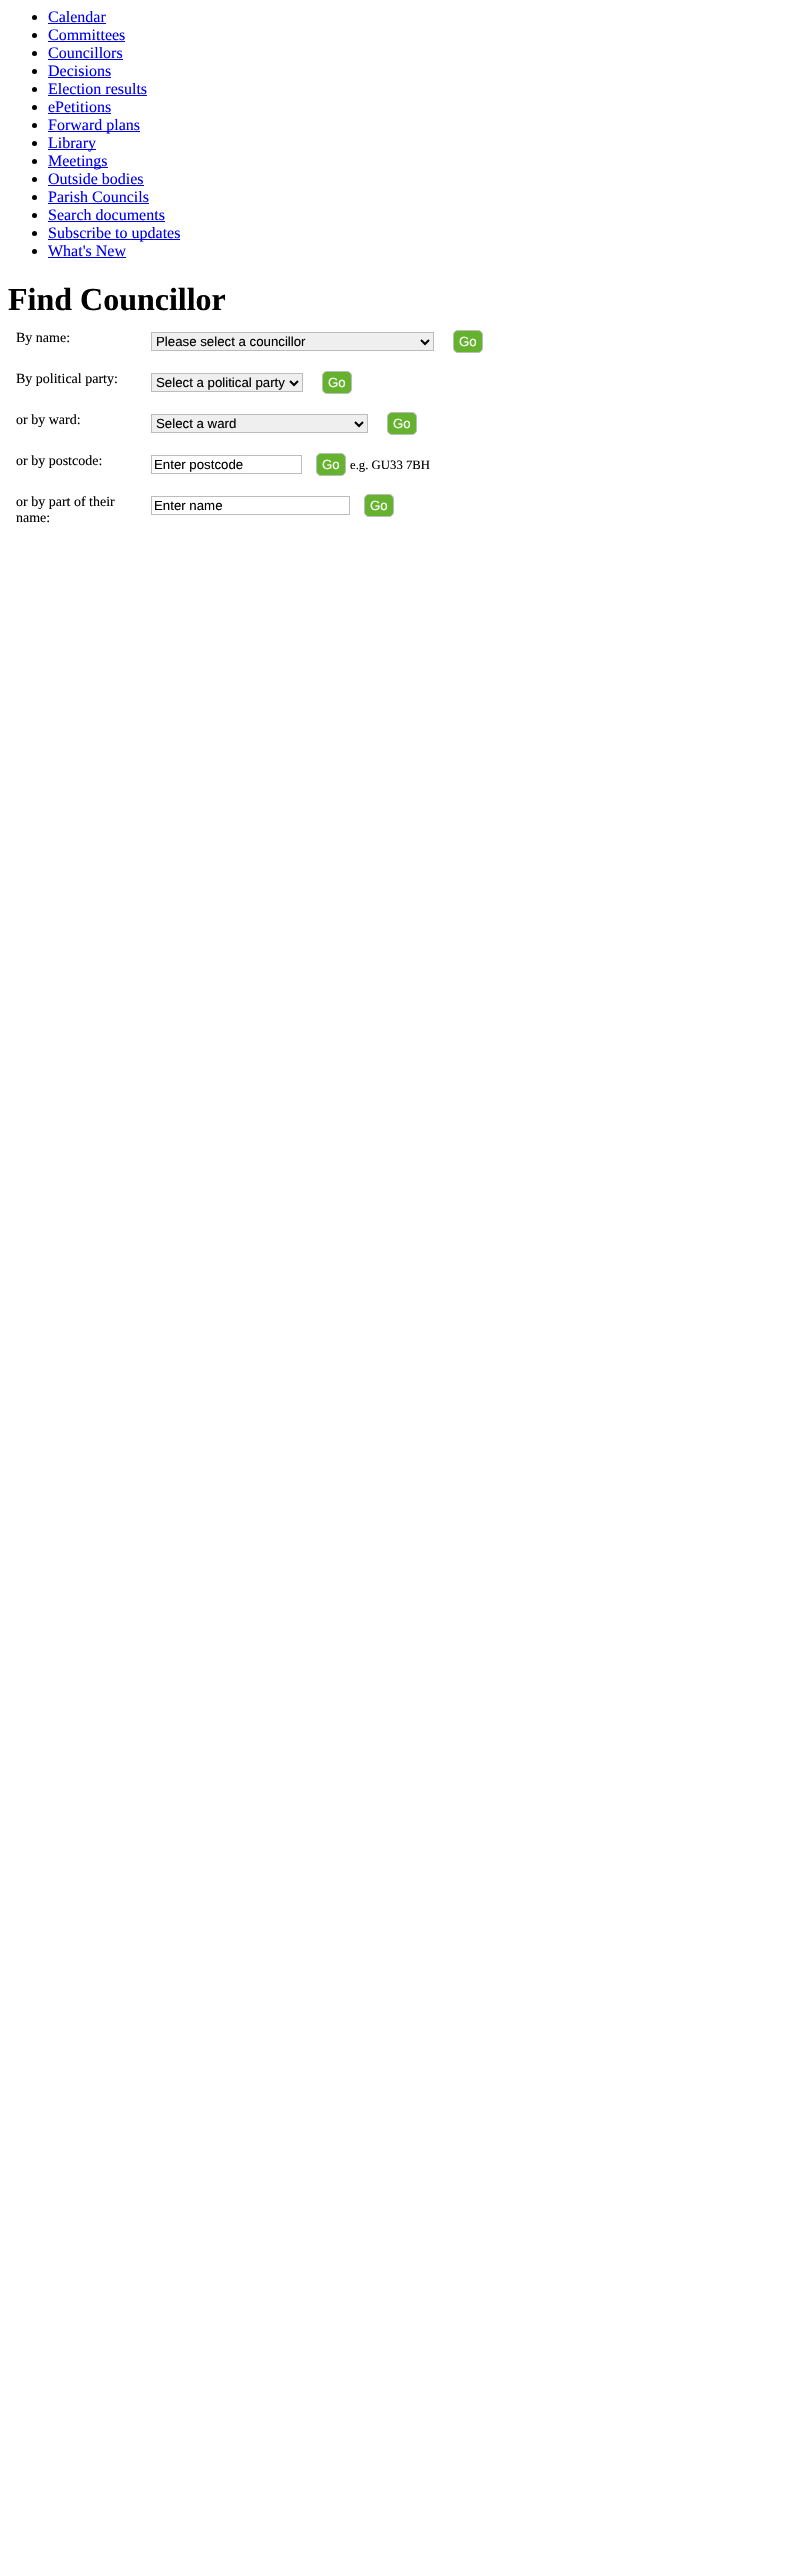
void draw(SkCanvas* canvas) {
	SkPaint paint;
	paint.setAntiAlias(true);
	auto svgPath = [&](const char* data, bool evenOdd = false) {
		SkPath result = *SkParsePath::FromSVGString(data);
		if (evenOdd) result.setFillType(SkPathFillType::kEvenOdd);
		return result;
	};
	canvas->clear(0xffffffff);
	paint.setColor(0xff000000);
	canvas->drawCircle(34.5, 17.5, 2.5, paint);
	SkFont f1(fontMgr->matchFamilyStyle("Liberation Serif", SkFontStyle::Normal()), 16);
	f1.setSubpixel(true);
	paint.setColor(0xff0000ee);
	canvas->drawString("Calendar", 48, 22, f1, paint);
	canvas->drawRect(SkRect::MakeXYWH(48, 23, 58, 1), paint);
	paint.setColor(0xff000000);
	canvas->drawCircle(34.5, 35.5, 2.5, paint);
	paint.setColor(0xff0000ee);
	canvas->drawString("Committees", 48, 40, f1, paint);
	canvas->drawRect(SkRect::MakeXYWH(48, 41, 77, 1), paint);
	paint.setColor(0xff000000);
	canvas->drawCircle(34.5, 53.5, 2.5, paint);
	paint.setColor(0xff0000ee);
	canvas->drawString("Councillors", 48, 58, f1, paint);
	canvas->drawRect(SkRect::MakeXYWH(48, 59, 75, 1), paint);
	paint.setColor(0xff000000);
	canvas->drawCircle(34.5, 71.5, 2.5, paint);
	paint.setColor(0xff0000ee);
	canvas->drawString("Decisions", 48, 76, f1, paint);
	canvas->drawRect(SkRect::MakeXYWH(48, 77, 63, 1), paint);
	paint.setColor(0xff000000);
	canvas->drawCircle(34.5, 89.5, 2.5, paint);
	paint.setColor(0xff0000ee);
	canvas->drawString("Election results", 48, 94, f1, paint);
	canvas->drawRect(SkRect::MakeXYWH(48, 95, 99, 1), paint);
	paint.setColor(0xff000000);
	canvas->drawCircle(34.5, 107.5, 2.5, paint);
	paint.setColor(0xff0000ee);
	canvas->drawString("ePetitions", 48, 112, f1, paint);
	canvas->drawRect(SkRect::MakeXYWH(48, 113, 63, 1), paint);
	paint.setColor(0xff000000);
	canvas->drawCircle(34.5, 125.5, 2.5, paint);
	paint.setColor(0xff0000ee);
	canvas->drawRect(SkRect::MakeXYWH(48, 131, 92, 1), paint);
	canvas->drawString("Forward plans", 48, 130, f1, paint);
	paint.setColor(0xff000000);
	canvas->drawCircle(34.5, 143.5, 2.5, paint);
	paint.setColor(0xff0000ee);
	canvas->drawRect(SkRect::MakeXYWH(48, 149, 48, 1), paint);
	canvas->drawString("Library", 48, 148, f1, paint);
	paint.setColor(0xff000000);
	canvas->drawCircle(34.5, 161.5, 2.5, paint);
	paint.setColor(0xff0000ee);
	canvas->drawRect(SkRect::MakeXYWH(48, 167, 60, 1), paint);
	canvas->drawString("Meetings", 48, 166, f1, paint);
	paint.setColor(0xff000000);
	canvas->drawCircle(34.5, 179.5, 2.5, paint);
	paint.setColor(0xff0000ee);
	canvas->drawString("Outside bodies", 48, 184, f1, paint);
	canvas->drawRect(SkRect::MakeXYWH(48, 185, 96, 1), paint);
	paint.setColor(0xff000000);
	canvas->drawCircle(34.5, 197.5, 2.5, paint);
	paint.setColor(0xff0000ee);
	canvas->drawString("Parish Councils", 48, 202, f1, paint);
	canvas->drawRect(SkRect::MakeXYWH(48, 203, 101, 1), paint);
	paint.setColor(0xff000000);
	canvas->drawCircle(34.5, 215.5, 2.5, paint);
	paint.setColor(0xff0000ee);
	canvas->drawString("Search documents", 48, 220, f1, paint);
	canvas->drawRect(SkRect::MakeXYWH(48, 221, 117, 1), paint);
	paint.setColor(0xff000000);
	canvas->drawCircle(34.5, 233.5, 2.5, paint);
	paint.setColor(0xff0000ee);
	canvas->drawRect(SkRect::MakeXYWH(48, 239, 132, 1), paint);
	canvas->drawString("Subscribe to updates", 48, 238, f1, paint);
	paint.setColor(0xff000000);
	canvas->drawCircle(34.5, 251.5, 2.5, paint);
	paint.setColor(0xff0000ee);
	canvas->drawString("What's New", 48, 256, f1, paint);
	canvas->drawRect(SkRect::MakeXYWH(48, 257, 78, 1), paint);
	SkFont f2(fontMgr->matchFamilyStyle("Liberation Serif", SkFontStyle::Bold()), 32);
	f2.setSubpixel(true);
	paint.setColor(0xff000000);
	canvas->drawString("Find Councillor", 8, 310, f2, paint);
	SkFont f3(fontMgr->matchFamilyStyle("Liberation Serif", SkFontStyle::Normal()), 14);
	f3.setSubpixel(true);
	canvas->drawString("By name:", 16, 342, f3, paint);
	paint.setColor(0xffefefef);
	canvas->drawRect(SkRect::MakeXYWH(151.5, 332.5, 282, 18), paint);
	paint.setStroke(true);
	paint.setStrokeWidth(1);
	paint.setColor(0xffbdbcbc);
	canvas->drawRect(SkRect::MakeXYWH(151.5, 332.5, 282, 18), paint);
	paint.setStrokeWidth(2);
	paint.setColor(0xff000000);
	canvas->drawPath(svgPath("M421 340L425 344L429 340"), paint);
	SkFont f4(fontMgr->matchFamilyStyle("Liberation Sans", SkFontStyle::Normal()), 13.25);
	f4.setSubpixel(true);
	paint.setStroke(false);
	canvas->drawString("Please select a councillor", 156, 346, f4, paint);
	paint.setColor(0xff65b22e);
	canvas->drawRoundRect(SkRect::MakeXYWH(453.5, 330.5, 29, 22), 4.5, 4.5, paint);
	paint.setStroke(true);
	paint.setStrokeWidth(1);
	paint.setColor(0xffbdbcbc);
	canvas->drawRoundRect(SkRect::MakeXYWH(453.5, 330.5, 29, 22), 4.5, 4.5, paint);
	paint.setStroke(false);
	paint.setColor(0xffffffff);
	canvas->drawString("Go", 459, 346, f4, paint);
	paint.setColor(0xff000000);
	canvas->drawString("By political party:", 16, 383, f3, paint);
	paint.setColor(0xffefefef);
	canvas->drawRect(SkRect::MakeXYWH(151.5, 373.5, 151, 18), paint);
	paint.setStroke(true);
	paint.setColor(0xffbdbcbc);
	canvas->drawRect(SkRect::MakeXYWH(151.5, 373.5, 151, 18), paint);
	paint.setStrokeWidth(2);
	paint.setColor(0xff000000);
	canvas->drawPath(svgPath("M290 381L294 385L298 381"), paint);
	paint.setStroke(false);
	canvas->drawString("Select a political party", 156, 387, f4, paint);
	paint.setColor(0xff65b22e);
	canvas->drawRoundRect(SkRect::MakeXYWH(322.5, 371.5, 29, 22), 4.5, 4.5, paint);
	paint.setStroke(true);
	paint.setStrokeWidth(1);
	paint.setColor(0xffbdbcbc);
	canvas->drawRoundRect(SkRect::MakeXYWH(322.5, 371.5, 29, 22), 4.5, 4.5, paint);
	paint.setStroke(false);
	paint.setColor(0xffffffff);
	canvas->drawString("Go", 328, 387, f4, paint);
	paint.setColor(0xff000000);
	canvas->drawString("or by ward:", 16, 424, f3, paint);
	paint.setColor(0xffefefef);
	canvas->drawRect(SkRect::MakeXYWH(151.5, 414.5, 216, 18), paint);
	paint.setStroke(true);
	paint.setColor(0xffbdbcbc);
	canvas->drawRect(SkRect::MakeXYWH(151.5, 414.5, 216, 18), paint);
	paint.setStrokeWidth(2);
	paint.setColor(0xff000000);
	canvas->drawPath(svgPath("M355 422L359 426L363 422"), paint);
	paint.setStroke(false);
	canvas->drawString("Select a ward", 156, 428, f4, paint);
	paint.setColor(0xff65b22e);
	canvas->drawRoundRect(SkRect::MakeXYWH(387.5, 412.5, 29, 22), 4.5, 4.5, paint);
	paint.setStroke(true);
	paint.setStrokeWidth(1);
	paint.setColor(0xffbdbcbc);
	canvas->drawRoundRect(SkRect::MakeXYWH(387.5, 412.5, 29, 22), 4.5, 4.5, paint);
	paint.setStroke(false);
	paint.setColor(0xffffffff);
	canvas->drawString("Go", 393, 428, f4, paint);
	paint.setColor(0xff000000);
	canvas->drawString("or by postcode:", 16, 465, f3, paint);
	paint.setStroke(true);
	paint.setColor(0xffbdbcbc);
	canvas->drawRect(SkRect::MakeXYWH(151.5, 455.5, 150, 18), paint);
	paint.setStroke(false);
	paint.setColor(0xff000000);
	canvas->drawString("Enter postcode", 154, 469, f4, paint);
	paint.setColor(0xff65b22e);
	canvas->drawRoundRect(SkRect::MakeXYWH(316.5, 453.5, 29, 22), 4.5, 4.5, paint);
	paint.setStroke(true);
	paint.setColor(0xffbdbcbc);
	canvas->drawRoundRect(SkRect::MakeXYWH(316.5, 453.5, 29, 22), 4.5, 4.5, paint);
	paint.setStroke(false);
	paint.setColor(0xffffffff);
	canvas->drawString("Go", 322, 469, f4, paint);
	SkFont f5(fontMgr->matchFamilyStyle("Liberation Serif", SkFontStyle::Normal()), 12.75);
	f5.setSubpixel(true);
	paint.setColor(0xff000000);
	canvas->drawString("e.g. GU33 7BH", 350, 469, f5, paint);
	canvas->drawString("or by part of their", 16, 506, f3, paint);
	canvas->drawString("name:", 16, 522, f3, paint);
	paint.setStroke(true);
	paint.setColor(0xffbdbcbc);
	canvas->drawRect(SkRect::MakeXYWH(151.5, 496.5, 198, 18), paint);
	paint.setStroke(false);
	paint.setColor(0xff000000);
	canvas->drawString("Enter name", 154, 510, f4, paint);
	paint.setColor(0xff65b22e);
	canvas->drawRoundRect(SkRect::MakeXYWH(364.5, 494.5, 29, 22), 4.5, 4.5, paint);
	paint.setStroke(true);
	paint.setColor(0xffbdbcbc);
	canvas->drawRoundRect(SkRect::MakeXYWH(364.5, 494.5, 29, 22), 4.5, 4.5, paint);
	paint.setStroke(false);
	paint.setColor(0xffffffff);
	canvas->drawString("Go", 370, 510, f4, paint);
}
